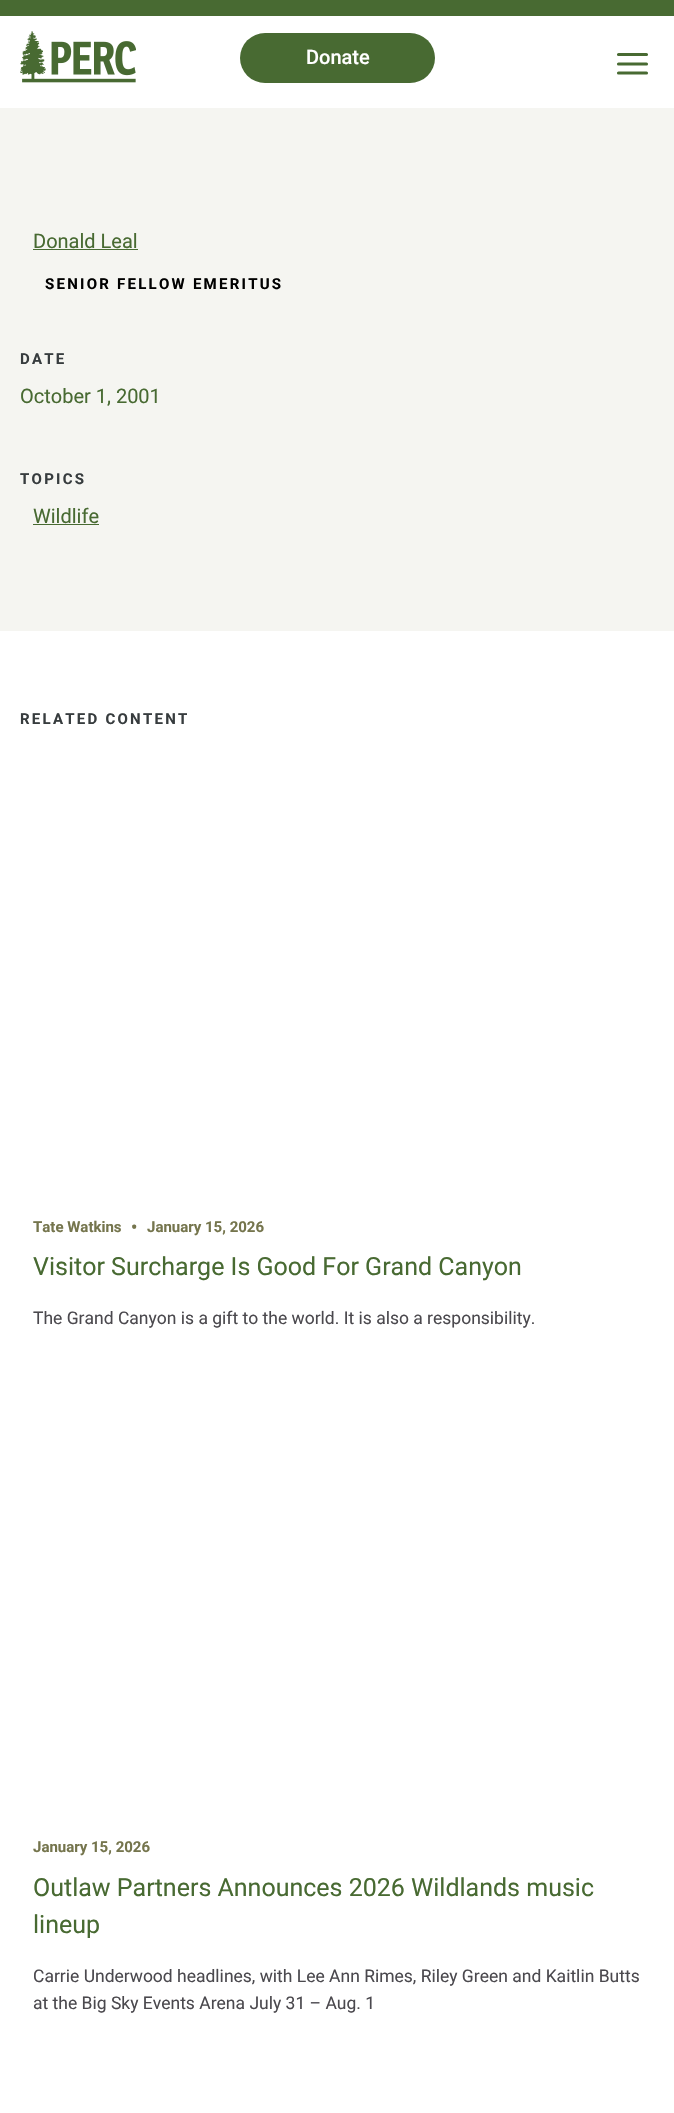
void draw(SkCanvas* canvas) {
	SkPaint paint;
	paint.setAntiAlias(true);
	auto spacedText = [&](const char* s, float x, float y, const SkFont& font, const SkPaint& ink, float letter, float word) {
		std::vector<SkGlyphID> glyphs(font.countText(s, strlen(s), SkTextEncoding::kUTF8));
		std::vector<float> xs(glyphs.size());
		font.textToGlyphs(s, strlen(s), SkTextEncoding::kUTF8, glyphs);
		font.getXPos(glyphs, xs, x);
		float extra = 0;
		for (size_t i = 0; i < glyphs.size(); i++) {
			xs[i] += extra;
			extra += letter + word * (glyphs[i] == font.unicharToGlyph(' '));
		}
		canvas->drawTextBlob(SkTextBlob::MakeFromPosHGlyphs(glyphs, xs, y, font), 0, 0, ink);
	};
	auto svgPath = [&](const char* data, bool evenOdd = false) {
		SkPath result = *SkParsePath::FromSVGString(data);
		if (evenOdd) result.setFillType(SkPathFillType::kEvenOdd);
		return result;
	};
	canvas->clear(0xffffffff);
	paint.setColor(0xff486a32);
	canvas->drawRect(SkRect::MakeXYWH(0, 0, 674, 16), paint);
	canvas->drawImageRect(SkImages::DeferredFromEncodedData(SkData::MakeFromFileName("img1.png")), SkRect::MakeXYWH(20, 31, 116, 52), SkSamplingOptions());
	canvas->drawRoundRect(SkRect::MakeXYWH(240, 33, 195, 50), 25, 25, paint);
	SkFont f1(fontMgr->matchFamilyStyle("Roboto", SkFontStyle(500, SkFontStyle::kNormal_Width, SkFontStyle::kUpright_Slant)), 20);
	f1.setSubpixel(true);
	paint.setColor(0xffffffff);
	canvas->drawString("Donate", 306, 64, f1, paint);
	paint.setStroke(true);
	paint.setStrokeWidth(3.1);
	paint.setStrokeCap(SkPaint::kRound_Cap);
	paint.setStrokeJoin(SkPaint::kRound_Join);
	paint.setColor(0xff486a32);
	canvas->drawPath(svgPath("M618.5 64H646.5M618.5 54.5H646.5M618.5 73H646.5"), paint);
	paint.setStroke(false);
	paint.setColor(0xfff5f5f1);
	canvas->drawRect(SkRect::MakeXYWH(0, 108, 674, 523), paint);
	SkFont f2(fontMgr->matchFamilyStyle("Roboto", SkFontStyle::Normal()), 20);
	f2.setSubpixel(true);
	paint.setColor(0xff486a32);
	canvas->drawString("Donald Leal", 33, 248, f2, paint);
	canvas->drawRect(SkRect::MakeXYWH(33, 249, 105, 1), paint);
	SkFont f3(fontMgr->matchFamilyStyle("Roboto", SkFontStyle::Bold()), 15);
	f3.setSubpixel(true);
	paint.setColor(0xff000000);
	spacedText("SENIOR FELLOW EMERITUS", 45, 289, f3, paint, 2.25, 0);
	paint.setColor(0xff373c3e);
	spacedText("DATE", 20, 364, f3, paint, 2.25, 0);
	paint.setColor(0xff486a32);
	canvas->drawString("October 1, 2001", 20, 403, f2, paint);
	paint.setColor(0xff373c3e);
	spacedText("TOPICS", 20, 484, f3, paint, 2.25, 0);
	paint.setColor(0xff486a32);
	canvas->drawString("Wildlife", 33, 523, f2, paint);
	canvas->drawRect(SkRect::MakeXYWH(33, 524, 66, 1), paint);
	paint.setColor(0xff373c3e);
	spacedText("RELATED CONTENT", 20, 724, f3, paint, 2.25, 0);
	paint.setColor(0xff75754d);
	canvas->drawString("Tate Watkins", 33, 1232, f3, paint);
	SkFont f4(fontMgr->matchFamilyStyle("Roboto", SkFontStyle::Bold()), 17.5);
	f4.setSubpixel(true);
	canvas->drawString("•", 131, 1233, f4, paint);
	canvas->drawString("January 15, 2026", 147, 1232, f3, paint);
	SkFont f5(fontMgr->matchFamilyStyle("Roboto", SkFontStyle::Normal()), 25);
	f5.setSubpixel(true);
	paint.setColor(0xff486a32);
	canvas->drawString("Visitor Surcharge Is Good For Grand Canyon", 33, 1275, f5, paint);
	SkFont f6(fontMgr->matchFamilyStyle("Roboto", SkFontStyle::Normal()), 17.5);
	f6.setSubpixel(true);
	paint.setColor(0xff4b494e);
	canvas->drawString("The Grand Canyon is a gift to the world. It is also a responsibility.", 33, 1324, f6, paint);
	paint.setColor(0xff75754d);
	canvas->drawString("January 15, 2026", 33, 1852, f3, paint);
	paint.setColor(0xff486a32);
	canvas->drawString("Outlaw Partners Announces 2026 Wildlands music", 33, 1896, f5, paint);
	canvas->drawString("lineup", 33, 1933, f5, paint);
	paint.setColor(0xff4b494e);
	canvas->drawString("Carrie Underwood headlines, with Lee Ann Rimes, Riley Green and Kaitlin Butts", 33, 1982, f6, paint);
	canvas->drawString("at the Big Sky Events Arena July 31 – Aug. 1", 33, 2009, f6, paint);
}
